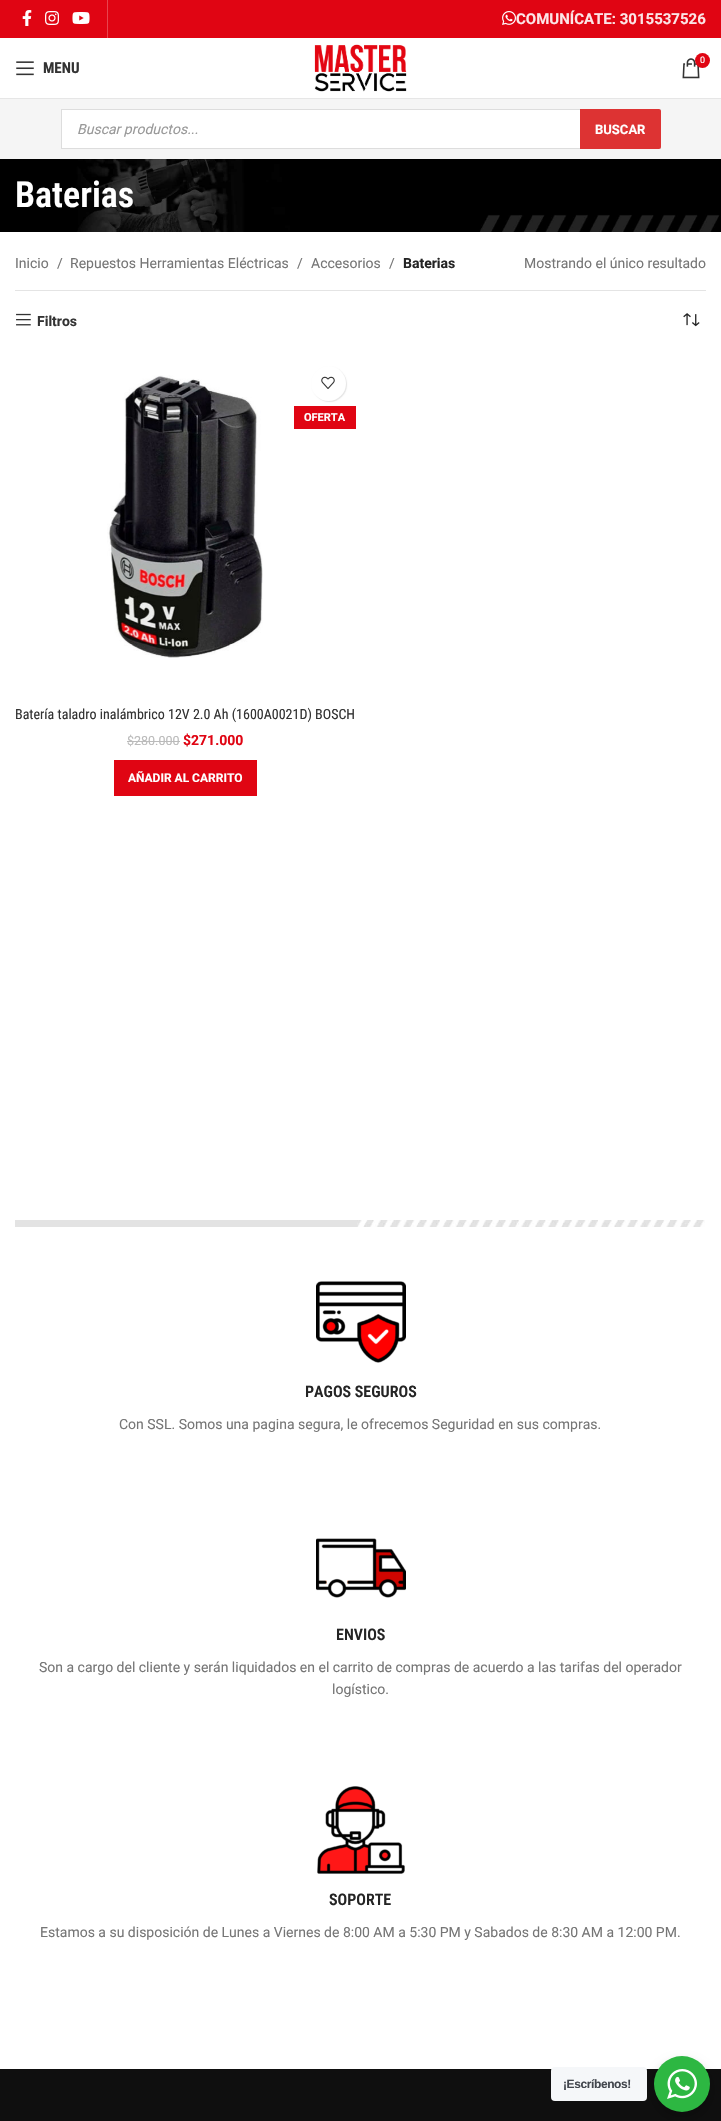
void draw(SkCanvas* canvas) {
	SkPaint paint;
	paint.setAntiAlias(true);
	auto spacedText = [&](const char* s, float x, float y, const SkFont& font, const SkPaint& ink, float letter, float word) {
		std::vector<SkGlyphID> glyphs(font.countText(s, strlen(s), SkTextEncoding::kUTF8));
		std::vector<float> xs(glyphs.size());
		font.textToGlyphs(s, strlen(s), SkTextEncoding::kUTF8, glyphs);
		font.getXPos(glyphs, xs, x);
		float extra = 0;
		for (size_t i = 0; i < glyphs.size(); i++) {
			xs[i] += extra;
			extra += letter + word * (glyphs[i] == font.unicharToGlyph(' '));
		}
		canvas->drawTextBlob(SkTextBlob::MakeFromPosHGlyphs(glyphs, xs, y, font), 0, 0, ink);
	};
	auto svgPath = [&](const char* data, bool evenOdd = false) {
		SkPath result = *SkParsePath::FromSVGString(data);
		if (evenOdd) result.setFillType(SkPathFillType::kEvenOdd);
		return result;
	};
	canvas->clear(0xffffffff);
	paint.setColor(0xffe00513);
	canvas->drawRect(SkRect::MakeXYWH(0, 0, 721, 38), paint);
	canvas->drawImageRect(SkImages::DeferredFromEncodedData(SkData::MakeFromFileName("img1.png")), SkRect::MakeXYWH(22, 10, 10, 16), SkSamplingOptions());
	canvas->drawImageRect(SkImages::DeferredFromEncodedData(SkData::MakeFromFileName("img2.png")), SkRect::MakeXYWH(45, 11, 14, 14), SkSamplingOptions());
	canvas->drawImageRect(SkImages::DeferredFromEncodedData(SkData::MakeFromFileName("img3.png")), SkRect::MakeXYWH(72, 12, 18, 12), SkSamplingOptions());
	paint.setColor(0xffe8444e);
	canvas->drawRect(SkRect::MakeXYWH(107, 0, 1, 38), paint);
	canvas->drawImageRect(SkImages::DeferredFromEncodedData(SkData::MakeFromFileName("img4.png")), SkRect::MakeXYWH(502, 11, 14, 14), SkSamplingOptions());
	SkFont f1(fontMgr->matchFamilyStyle("Roboto", SkFontStyle::Bold()), 15);
	f1.setSubpixel(true);
	paint.setColor(0xfffce6e7);
	canvas->drawString("COMUNÍCATE: 3015537526", 516, 24, f1, paint);
	paint.setColor(0xffe6e6e6);
	canvas->drawRect(SkRect::MakeXYWH(0, 98, 721, 1), paint);
	canvas->drawImageRect(SkImages::DeferredFromEncodedData(SkData::MakeFromFileName("img5.png")), SkRect::MakeXYWH(314, 44, 93, 48), SkSamplingOptions());
	canvas->drawImageRect(SkImages::DeferredFromEncodedData(SkData::MakeFromFileName("img6.png")), SkRect::MakeXYWH(682, 58, 18, 21), SkSamplingOptions());
	paint.setColor(0xffe00513);
	canvas->drawCircle(702.5, 60.5, 7.5, paint);
	SkFont f2(fontMgr->matchFamilyStyle("Roboto", SkFontStyle::Normal()), 9);
	f2.setSubpixel(true);
	paint.setColor(0xffffffff);
	canvas->drawString("0", 700, 63, f2, paint);
	canvas->drawImageRect(SkImages::DeferredFromEncodedData(SkData::MakeFromFileName("img7.png")), SkRect::MakeXYWH(16, 61, 18, 15), SkSamplingOptions());
	SkFont f3(fontMgr->matchFamilyStyle("Roboto Condensed", SkFontStyle::Bold()), 15);
	f3.setSubpixel(true);
	paint.setColor(0xff333333);
	canvas->drawString("MENU", 43, 73, f3, paint);
	paint.setColor(0xfff5f5f5);
	canvas->drawRect(SkRect::MakeXYWH(0, 99, 721, 60), paint);
	paint.setColor(0xffffffff);
	canvas->drawRect(SkRect::MakeXYWH(62, 110, 518, 38), paint);
	paint.setStroke(true);
	paint.setStrokeWidth(1);
	paint.setColor(0xffdddddd);
	canvas->drawRect(SkRect::MakeXYWH(61.5, 109.5, 599, 39), paint);
	SkFont f4(fontMgr->matchFamilyStyle("Roboto", SkFontStyle::Italic()), 14);
	f4.setSubpixel(true);
	paint.setStroke(false);
	paint.setColor(0xff999999);
	canvas->drawString("Buscar productos...", 77, 134, f4, paint);
	paint.setColor(0xffdd3333);
	canvas->drawPath(svgPath("M580 109H659C660 109 661 110 661 111V147C661 148 660 149 659 149H580Z"), paint);
	SkFont f5(fontMgr->matchFamilyStyle("Roboto", SkFontStyle::Bold()), 13);
	f5.setSubpixel(true);
	paint.setColor(0xffffffff);
	canvas->drawString("BUSCAR", 595, 134, f5, paint);
	canvas->drawImageRect(SkImages::DeferredFromEncodedData(SkData::MakeFromFileName("img8.png")), SkRect::MakeXYWH(0, 159, 721, 73), SkSamplingOptions());
	SkFont f6(fontMgr->matchFamilyStyle("Roboto Condensed", SkFontStyle(600, SkFontStyle::kNormal_Width, SkFontStyle::kUpright_Slant)), 36);
	f6.setSubpixel(true);
	canvas->drawString("Baterias", 15, 207, f6, paint);
	paint.setColor(0xffe4e4e4);
	canvas->drawRect(SkRect::MakeXYWH(15, 290, 691, 1), paint);
	SkFont f7(fontMgr->matchFamilyStyle("Roboto", SkFontStyle::Normal()), 14);
	f7.setSubpixel(true);
	paint.setColor(0xff767676);
	canvas->drawString("Inicio", 15, 268, f7, paint);
	canvas->drawString("/", 57, 268, f7, paint);
	canvas->drawString("Repuestos Herramientas Eléctricas", 70, 268, f7, paint);
	canvas->drawString("/", 297, 268, f7, paint);
	canvas->drawString("Accesorios", 311, 268, f7, paint);
	canvas->drawString("/", 389, 268, f7, paint);
	SkFont f8(fontMgr->matchFamilyStyle("Roboto", SkFontStyle::Bold()), 14);
	f8.setSubpixel(true);
	paint.setColor(0xff242424);
	canvas->drawString("Baterias", 403, 268, f8, paint);
	paint.setColor(0xff767676);
	canvas->drawString("Mostrando el único resultado", 524, 268, f7, paint);
	canvas->drawImageRect(SkImages::DeferredFromEncodedData(SkData::MakeFromFileName("img9.png")), SkRect::MakeXYWH(16, 313, 15, 13), SkSamplingOptions());
	paint.setColor(0xff333333);
	canvas->drawString("Filtros", 37, 326, f8, paint);
	canvas->drawImageRect(SkImages::DeferredFromEncodedData(SkData::MakeFromFileName("img10.png")), SkRect::MakeXYWH(683, 313, 17, 14), SkSamplingOptions());
	paint.setColor(0x1a000000);
	paint.setMaskFilter(SkMaskFilter::MakeBlur(kNormal_SkBlurStyle, 0.5));
	canvas->drawRoundRect(SkRect::MakeXYWH(312, 367, 35, 35), 17.5, 17.5, paint);
	paint.setMaskFilter(nullptr);
	paint.setColor(0xffffffff);
	canvas->drawCircle(328.5, 383.5, 17.5, paint);
	canvas->drawImageRect(SkImages::DeferredFromEncodedData(SkData::MakeFromFileName("img11.png")), SkRect::MakeXYWH(321, 376, 14, 13), SkSamplingOptions());
	canvas->drawImageRect(SkImages::DeferredFromEncodedData(SkData::MakeFromFileName("img12.png")), SkRect::MakeXYWH(107, 375, 156, 283), SkSamplingOptions());
	paint.setColor(0xffe00513);
	canvas->drawRect(SkRect::MakeXYWH(294, 406, 62, 23), paint);
	SkFont f9(fontMgr->matchFamilyStyle("Roboto", SkFontStyle::Bold()), 11);
	f9.setSubpixel(true);
	paint.setColor(0xffffffff);
	canvas->drawString("OFERTA", 304, 421, f9, paint);
	SkFont f10(fontMgr->matchFamilyStyle("Roboto Condensed", SkFontStyle::Normal()), 14);
	f10.setSubpixel(true);
	paint.setColor(0xff333333);
	canvas->drawString("Batería taladro inalámbrico 12V 2.0 Ah (1600A0021D) BOSCH", 15, 719, f10, paint);
	SkFont f11(fontMgr->matchFamilyStyle("Roboto", SkFontStyle::Normal()), 12.5);
	f11.setSubpixel(true);
	paint.setColor(0xffbbbbbb);
	canvas->drawString("$280.000", 127, 745, f11, paint);
	canvas->drawRect(SkRect::MakeXYWH(127, 741, 53, 1), paint);
	paint.setColor(0xffe00513);
	canvas->drawString("$271.000", 183, 745, f8, paint);
	canvas->drawRect(SkRect::MakeXYWH(114, 760, 143, 36), paint);
	SkFont f12(fontMgr->matchFamilyStyle("Roboto", SkFontStyle::Bold()), 12);
	f12.setSubpixel(true);
	paint.setColor(0xffffffff);
	canvas->drawString("AÑADIR AL CARRITO", 128, 782, f12, paint);
	canvas->drawImageRect(SkImages::DeferredFromEncodedData(SkData::MakeFromFileName("img13.png")), SkRect::MakeXYWH(15, 1220, 690, 7), SkSamplingOptions());
	canvas->drawImageRect(SkImages::DeferredFromEncodedData(SkData::MakeFromFileName("img14.png")), SkRect::MakeXYWH(316, 1281, 90, 82), SkSamplingOptions());
	SkFont f13(fontMgr->matchFamilyStyle("Roboto Condensed", SkFontStyle(600, SkFontStyle::kNormal_Width, SkFontStyle::kUpright_Slant)), 16);
	f13.setSubpixel(true);
	paint.setColor(0xff242424);
	canvas->drawString("PAGOS SEGUROS", 305, 1397, f13, paint);
	paint.setColor(0xff767676);
	canvas->drawString("Con SSL. Somos una pagina segura, le ofrecemos Seguridad en sus compras.", 119, 1429, f7, paint);
	canvas->drawImageRect(SkImages::DeferredFromEncodedData(SkData::MakeFromFileName("img15.png")), SkRect::MakeXYWH(316, 1538, 90, 60), SkSamplingOptions());
	paint.setColor(0xff242424);
	canvas->drawString("ENVIOS", 336, 1640, f13, paint);
	paint.setColor(0xff767676);
	canvas->drawString("Son a cargo del cliente y serán liquidados en el carrito de compras de acuerdo a las tarifas del operador", 39, 1672, f7, paint);
	canvas->drawString("logístico.", 332, 1694, f7, paint);
	canvas->drawImageRect(SkImages::DeferredFromEncodedData(SkData::MakeFromFileName("img16.png")), SkRect::MakeXYWH(317, 1786, 88, 88), SkSamplingOptions());
	paint.setColor(0xff242424);
	canvas->drawString("SOPORTE", 329, 1905, f13, paint);
	paint.setColor(0xff767676);
	canvas->drawString("Estamos a su disposición de Lunes a Viernes de 8:00 AM a 5:30 PM y Sabados de 8:30 AM a 12:00 PM.", 40, 1937, f7, paint);
	paint.setColor(0xff0f0f0f);
	canvas->drawRect(SkRect::MakeXYWH(0, 2069, 721, 52), paint);
	paint.setColor(0x24000000);
	paint.setMaskFilter(SkMaskFilter::MakeBlur(kNormal_SkBlurStyle, 4));
	canvas->drawRoundRect(SkRect::MakeXYWH(652, 2060, 60, 60), 30, 30, paint);
	paint.setMaskFilter(nullptr);
	paint.setColor(0xfff5f7f9);
	canvas->drawRoundRect(SkRect::MakeXYWH(551, 2067, 96, 34), 4, 4, paint);
	SkFont f14(fontMgr->matchFamilyStyle("Liberation Sans", SkFontStyle::Bold()), 12);
	f14.setSubpixel(true);
	paint.setColor(0xff43474e);
	spacedText("¡Escríbenos!", 563, 2088, f14, paint, -0.4, 0);
	paint.setColor(0xff2db742);
	canvas->drawCircle(682, 2084, 28, paint);
	canvas->drawImageRect(SkImages::DeferredFromEncodedData(SkData::MakeFromFileName("img17.png")), SkRect::MakeXYWH(667, 2069, 30, 30), SkSamplingOptions());
}
